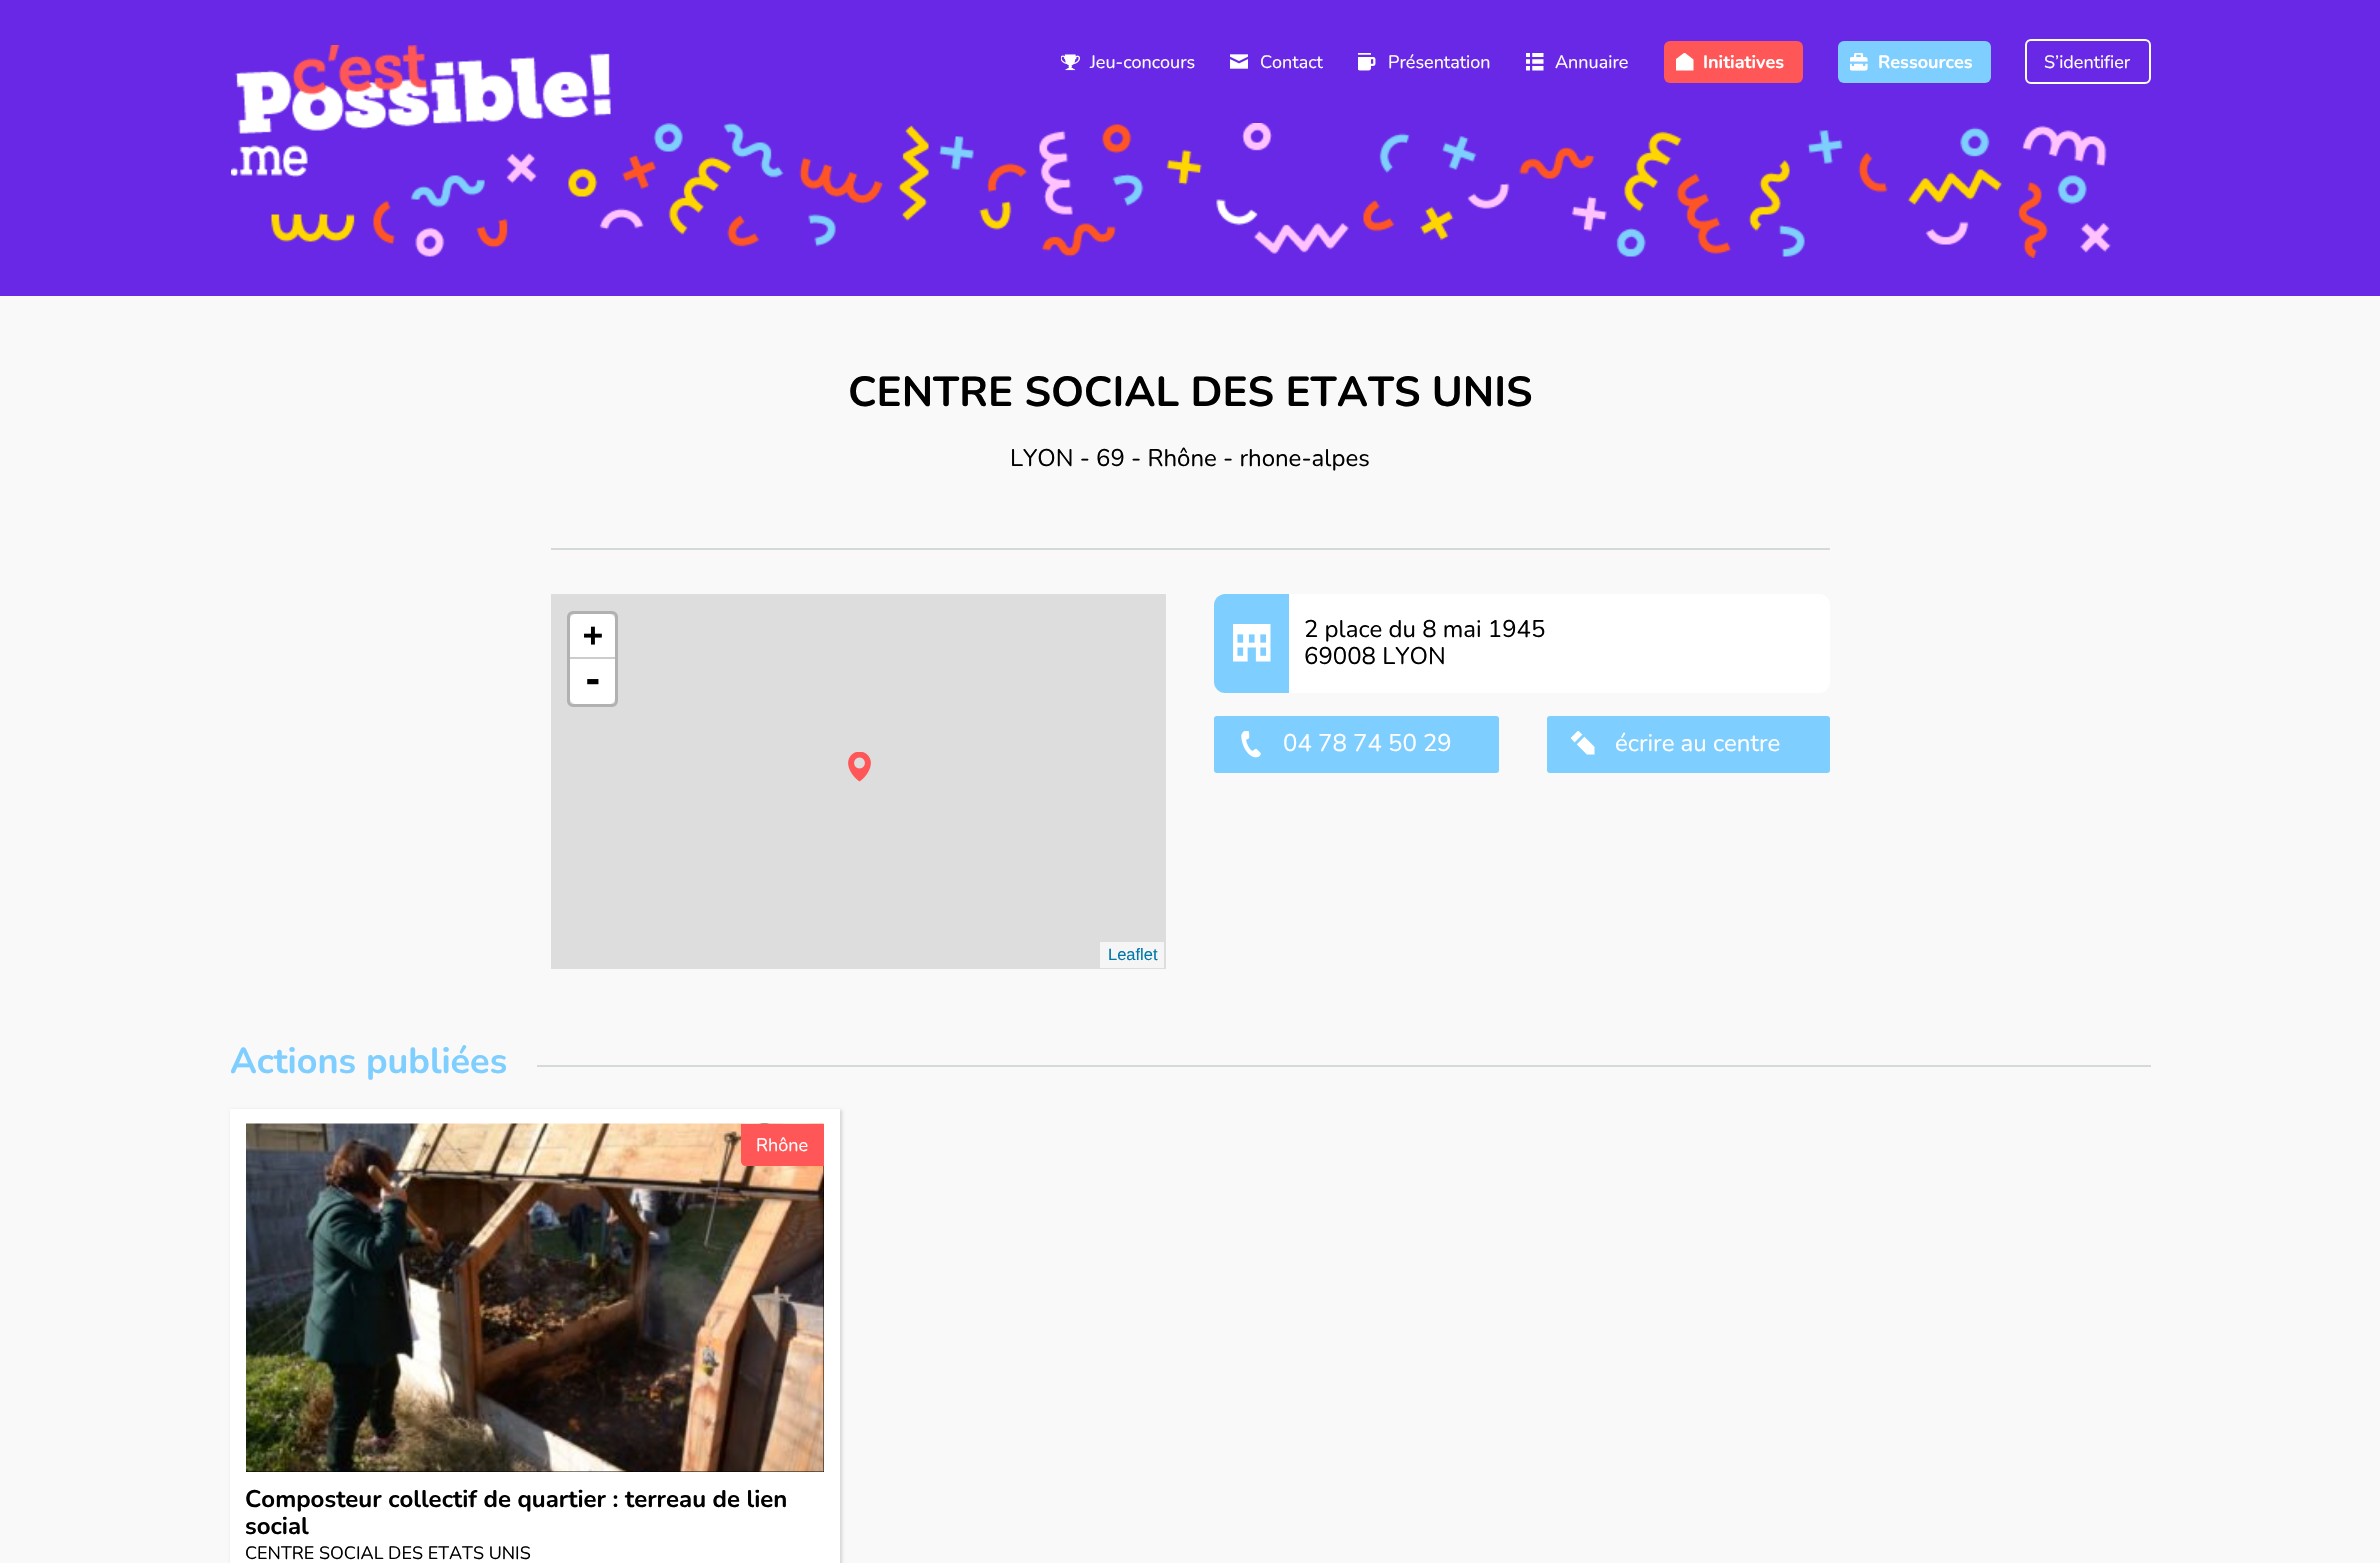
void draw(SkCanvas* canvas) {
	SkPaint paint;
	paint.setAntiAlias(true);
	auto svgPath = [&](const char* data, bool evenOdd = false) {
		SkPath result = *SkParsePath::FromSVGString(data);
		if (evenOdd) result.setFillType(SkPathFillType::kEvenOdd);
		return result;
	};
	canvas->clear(0xfff9f9f9);
	paint.setColor(0xff6828e5);
	canvas->drawRect(SkRect::MakeXYWH(0, 0, 2380, 296), paint);
	canvas->drawImageRect(SkImages::DeferredFromEncodedData(SkData::MakeFromFileName("img1.png")), SkRect::MakeXYWH(231, 45, 380, 132), SkSamplingOptions());
	canvas->drawImageRect(SkImages::DeferredFromEncodedData(SkData::MakeFromFileName("img2.png")), SkRect::MakeXYWH(1061, 54, 19, 17), SkSamplingOptions());
	SkFont f1(fontMgr->matchFamilyStyle("Nunito", SkFontStyle::Normal()), 18);
	f1.setSubpixel(true);
	paint.setColor(0xffffffff);
	canvas->drawString("Jeu-concours", 1090, 68, f1, paint);
	canvas->drawImageRect(SkImages::DeferredFromEncodedData(SkData::MakeFromFileName("img3.png")), SkRect::MakeXYWH(1230, 54, 18, 15), SkSamplingOptions());
	canvas->drawString("Contact", 1260, 68, f1, paint);
	canvas->drawImageRect(SkImages::DeferredFromEncodedData(SkData::MakeFromFileName("img4.png")), SkRect::MakeXYWH(1358, 53, 18, 18), SkSamplingOptions());
	canvas->drawString("Présentation", 1388, 68, f1, paint);
	canvas->drawImageRect(SkImages::DeferredFromEncodedData(SkData::MakeFromFileName("img5.png")), SkRect::MakeXYWH(1526, 53, 18, 18), SkSamplingOptions());
	canvas->drawString("Annuaire", 1555, 68, f1, paint);
	paint.setColor(0xffff5757);
	canvas->drawRoundRect(SkRect::MakeXYWH(1664, 41, 139, 42), 6, 6, paint);
	SkFont f2(fontMgr->matchFamilyStyle("Nunito", SkFontStyle::Bold()), 18);
	f2.setSubpixel(true);
	paint.setColor(0xffffffff);
	canvas->drawString("Initiatives", 1703, 68, f2, paint);
	canvas->save();
	canvas->clipRect(SkRect::MakeXYWH(1676, 53, 18, 18));
	canvas->drawPath(svgPath("M1684.5 52.5L1675.5 59.5V70.5H1693.5V59.5"), paint);
	canvas->restore();
	paint.setColor(0xff7eceff);
	canvas->drawRoundRect(SkRect::MakeXYWH(1838, 41, 153, 42), 6, 6, paint);
	canvas->drawImageRect(SkImages::DeferredFromEncodedData(SkData::MakeFromFileName("img6.png")), SkRect::MakeXYWH(1850, 53, 18, 18), SkSamplingOptions());
	paint.setColor(0xffffffff);
	canvas->drawString("Ressources", 1878, 68, f2, paint);
	paint.setStroke(true);
	paint.setStrokeWidth(2);
	canvas->drawRoundRect(SkRect::MakeXYWH(2026, 40, 124, 43), 5, 5, paint);
	paint.setStroke(false);
	canvas->drawString("S’identifier", 2044, 68, f1, paint);
	canvas->drawImageRect(SkImages::DeferredFromEncodedData(SkData::MakeFromFileName("img7.png")), SkRect::MakeXYWH(271, 123, 1840, 135), SkSamplingOptions());
	SkFont f3(fontMgr->matchFamilyStyle("Nunito", SkFontStyle::Bold()), 42);
	f3.setSubpixel(true);
	paint.setColor(0xff000000);
	canvas->drawString("CENTRE SOCIAL DES ETATS UNIS", 848, 406, f3, paint);
	SkFont f4(fontMgr->matchFamilyStyle("Nunito", SkFontStyle::Normal()), 24);
	f4.setSubpixel(true);
	canvas->drawString("LYON - 69 - Rhône - rhone-alpes", 1010, 466, f4, paint);
	paint.setColor(0xffd2dadc);
	canvas->drawRect(SkRect::MakeXYWH(551, 548, 1279, 2), paint);
	paint.setColor(0xffdddddd);
	canvas->drawRect(SkRect::MakeXYWH(551, 594, 615, 375), paint);
	paint.setStroke(true);
	paint.setStrokeWidth(3);
	paint.setColor(0xffb1b1b1);
	canvas->drawRoundRect(SkRect::MakeXYWH(568.5, 612.5, 48, 93), 4.5, 4.5, paint);
	paint.setStroke(false);
	paint.setColor(0xffffffff);
	canvas->drawPath(svgPath("M576 614H609C612.5 614 615 616.5 615 620V659H570V620C570 616.5 572.5 614 576 614Z"), paint);
	paint.setColor(0xffcccccc);
	canvas->drawRect(SkRect::MakeXYWH(570, 657, 45, 2), paint);
	SkFont f5(fontMgr->matchFamilyStyle("DejaVu Sans Mono", SkFontStyle::Bold()), 33);
	f5.setSubpixel(true);
	paint.setColor(0xff000000);
	canvas->drawString("+", 583, 646, f5, paint);
	paint.setColor(0xffffffff);
	canvas->drawPath(svgPath("M570 659H615V698C615 701.5 612.5 704 609 704H576C572.5 704 570 701.5 570 698Z"), paint);
	SkFont f6(fontMgr->matchFamilyStyle("DejaVu Sans Mono", SkFontStyle::Bold()), 36);
	f6.setSubpixel(true);
	paint.setColor(0xff000000);
	canvas->drawString("-", 582, 692, f6, paint);
	paint.setColor(0xfff5f5f5);
	canvas->drawRect(SkRect::MakeXYWH(1100, 942, 64, 26), paint);
	SkFont f7(fontMgr->matchFamilyStyle("Liberation Sans", SkFontStyle::Normal()), 16.5);
	f7.setSubpixel(true);
	paint.setColor(0xff0078a8);
	canvas->drawString("Leaflet", 1108, 960, f7, paint);
	canvas->drawImageRect(SkImages::DeferredFromEncodedData(SkData::MakeFromFileName("img8.png")), SkRect::MakeXYWH(848, 752, 23, 30), SkSamplingOptions());
	paint.setColor(0xffffffff);
	canvas->drawRoundRect(SkRect::MakeXYWH(1214, 594, 616, 99), 11, 11, paint);
	paint.setColor(0xff7eceff);
	canvas->drawPath(svgPath("M1225 594H1289V693H1225C1219 693 1214 688 1214 682V605C1214 599 1219 594 1225 594Z"), paint);
	canvas->drawImageRect(SkImages::DeferredFromEncodedData(SkData::MakeFromFileName("img9.png")), SkRect::MakeXYWH(1233, 624, 38, 38), SkSamplingOptions());
	paint.setColor(0xff000000);
	canvas->drawString("2 place du 8 mai 1945", 1304, 637, f4, paint);
	canvas->drawString("69008 LYON", 1304, 664, f4, paint);
	paint.setColor(0xff7eceff);
	canvas->drawRoundRect(SkRect::MakeXYWH(1214, 716, 285, 57), 3, 3, paint);
	canvas->drawImageRect(SkImages::DeferredFromEncodedData(SkData::MakeFromFileName("img10.png")), SkRect::MakeXYWH(1241, 731, 20, 27), SkSamplingOptions());
	paint.setColor(0xffffffff);
	canvas->drawString("04 78 74 50 29", 1283, 751, f4, paint);
	paint.setColor(0xff7eceff);
	canvas->drawRoundRect(SkRect::MakeXYWH(1547, 716, 283, 57), 3, 3, paint);
	canvas->drawImageRect(SkImages::DeferredFromEncodedData(SkData::MakeFromFileName("img11.png")), SkRect::MakeXYWH(1571, 731, 24, 24), SkSamplingOptions());
	paint.setColor(0xffffffff);
	canvas->drawString("écrire au centre", 1615, 751, f4, paint);
	SkFont f8(fontMgr->matchFamilyStyle("Nunito", SkFontStyle::Bold()), 36);
	f8.setSubpixel(true);
	paint.setColor(0xff7eceff);
	canvas->drawString("Actions publiées", 230, 1073, f8, paint);
	paint.setColor(0xffd2dadc);
	canvas->drawRect(SkRect::MakeXYWH(537, 1065, 1614, 2), paint);
	paint.setColor(0x26000000);
	paint.setMaskFilter(SkMaskFilter::MakeBlur(kNormal_SkBlurStyle, 1.5));
	canvas->drawRect(SkRect::MakeXYWH(231, 1110, 611, 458), paint);
	paint.setMaskFilter(nullptr);
	paint.setColor(0xffffffff);
	canvas->drawRect(SkRect::MakeXYWH(230, 1109, 610, 454), paint);
	paint.setColor(0xff000000);
	canvas->drawRect(SkRect::MakeXYWH(246, 1166, 578, 306), paint);
	canvas->drawImageRect(SkImages::DeferredFromEncodedData(SkData::MakeFromFileName("img12.png")), SkRect::MakeXYWH(246, 1123, 578, 349), SkSamplingOptions());
	paint.setColor(0xffff5757);
	canvas->drawPath(svgPath("M741 1124H824V1166H746C743 1166 741 1164 741 1161Z"), paint);
	paint.setColor(0xffffffff);
	canvas->drawString("Rhône", 756, 1151, f1, paint);
	SkFont f9(fontMgr->matchFamilyStyle("Nunito", SkFontStyle::Bold()), 24);
	f9.setSubpixel(true);
	paint.setColor(0xff000000);
	canvas->drawString("Composteur collectif de quartier : terreau de lien", 245, 1507, f9, paint);
	canvas->drawString("social", 245, 1534, f9, paint);
	canvas->drawString("CENTRE SOCIAL DES ETATS UNIS", 245, 1559, f1, paint);
}
